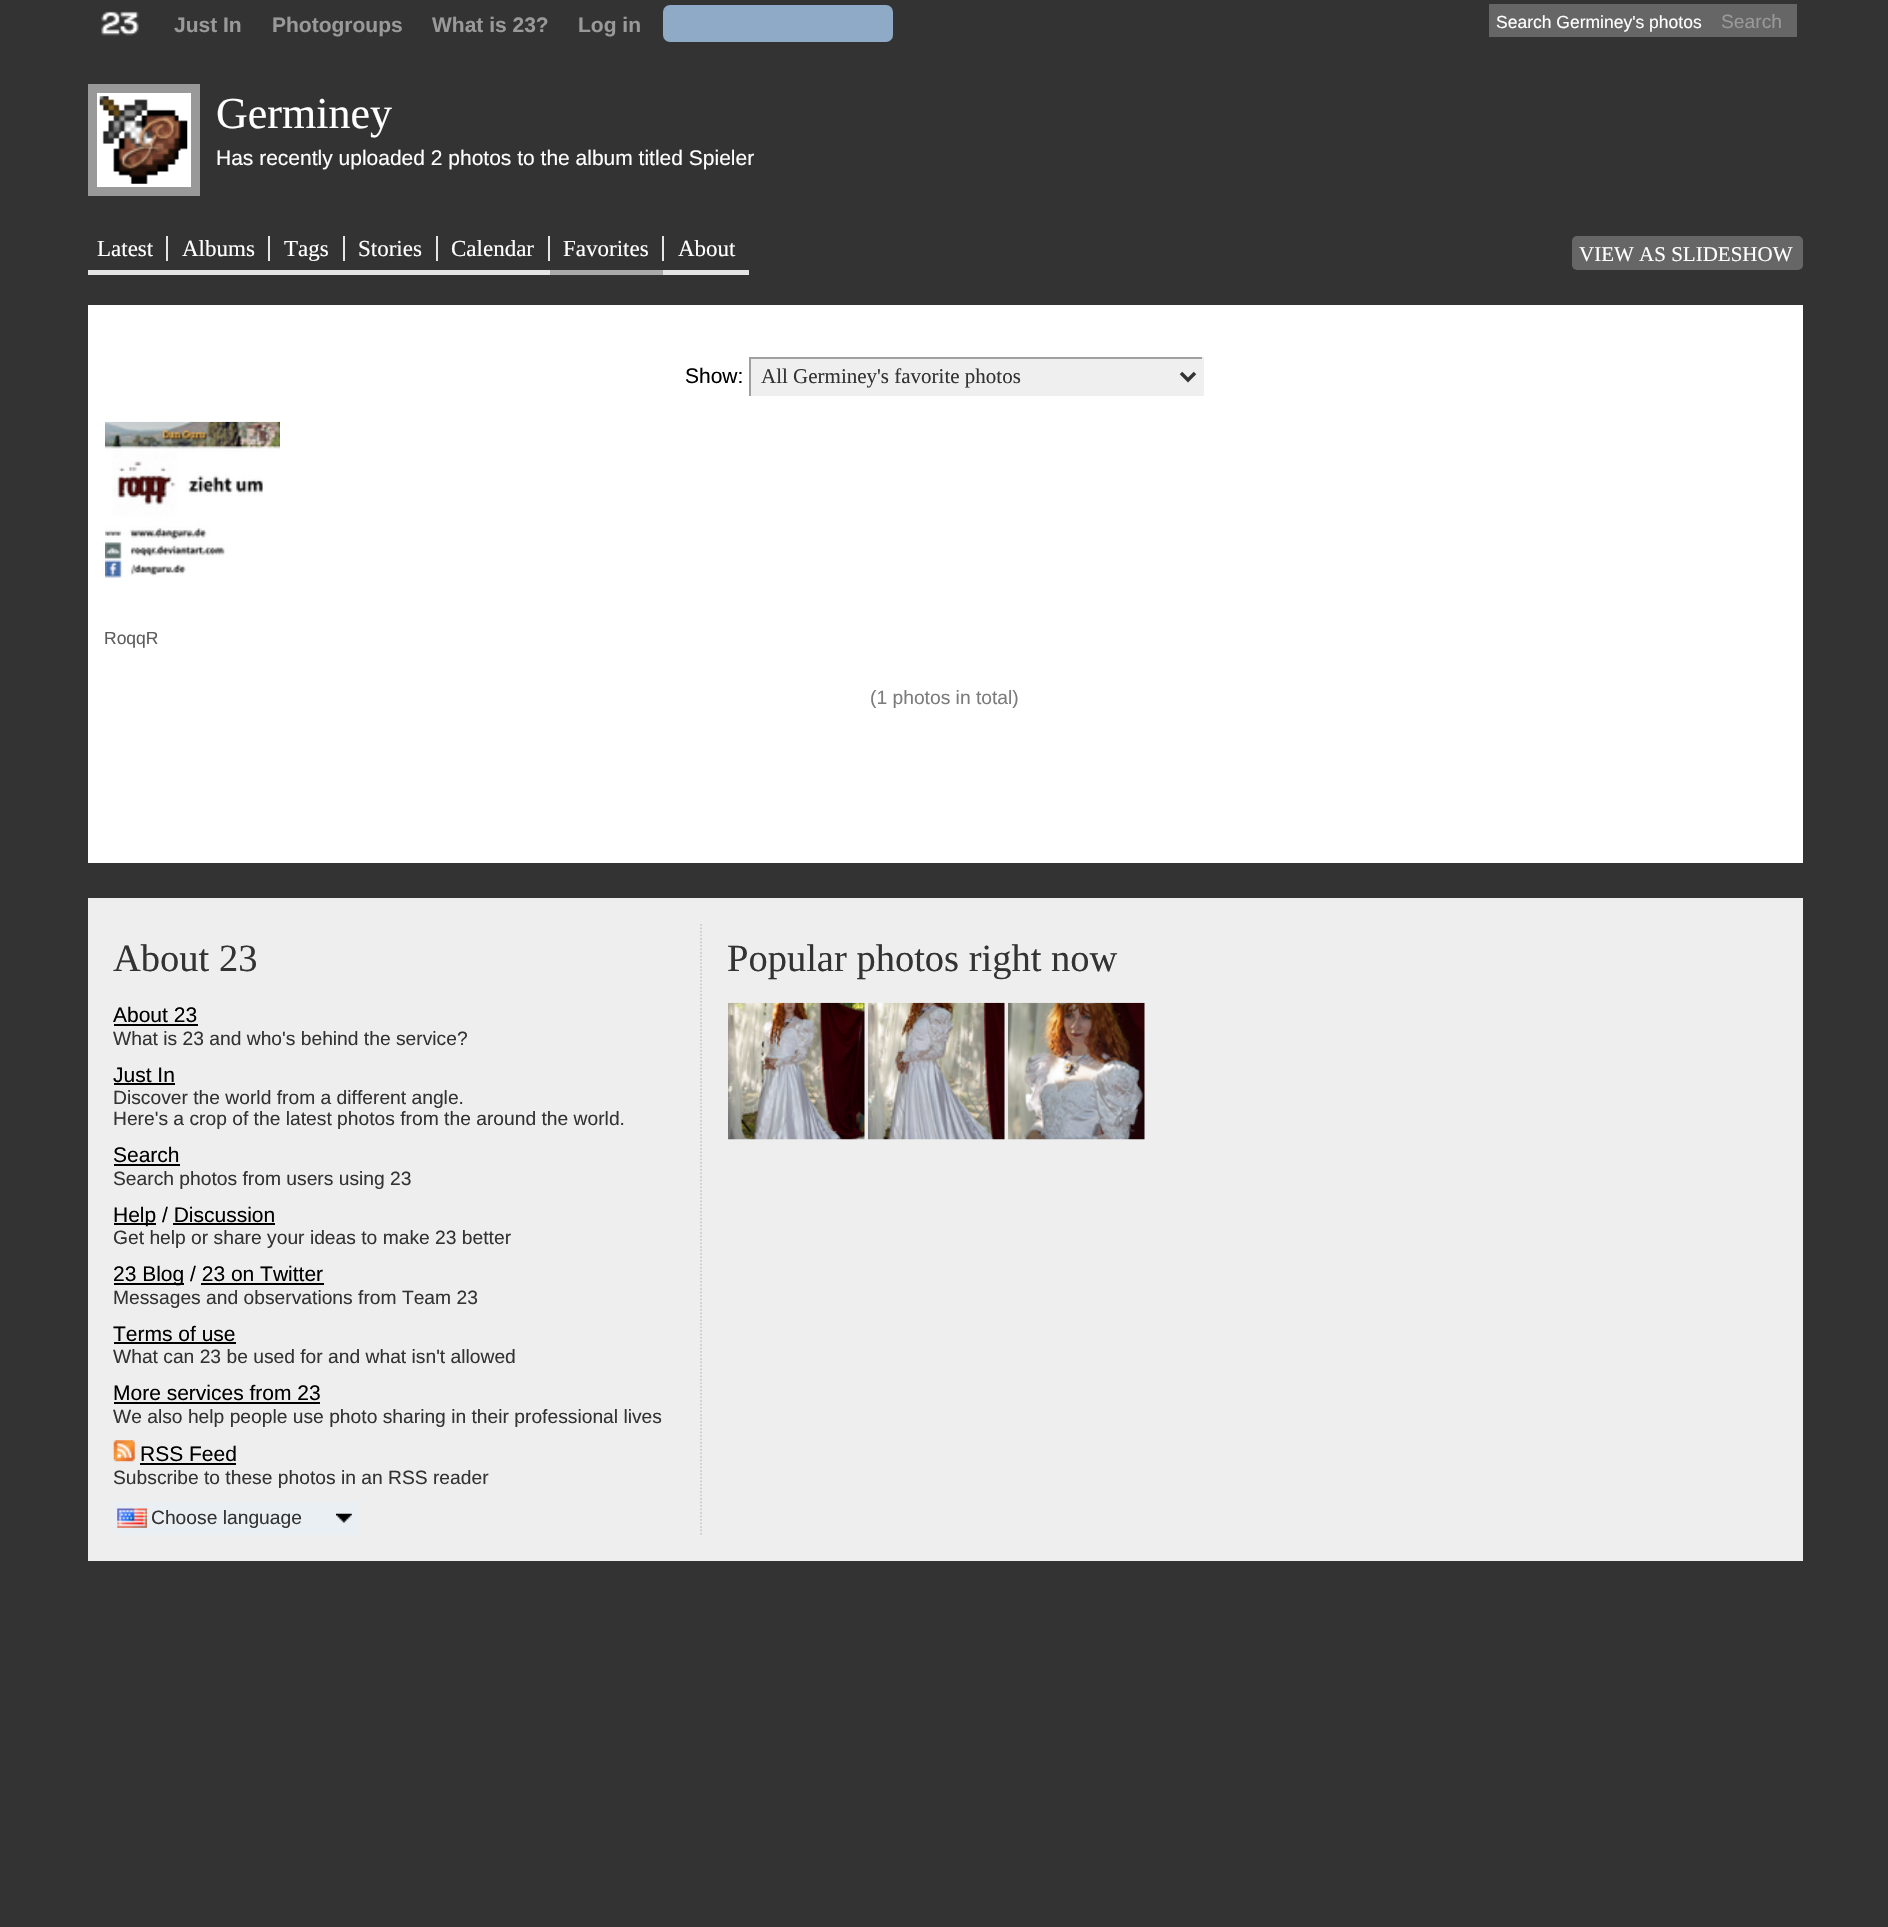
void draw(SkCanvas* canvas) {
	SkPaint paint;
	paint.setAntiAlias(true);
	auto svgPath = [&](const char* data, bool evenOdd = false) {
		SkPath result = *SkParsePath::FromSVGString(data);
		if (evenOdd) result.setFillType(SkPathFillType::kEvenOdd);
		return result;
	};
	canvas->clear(0xff333333);
	canvas->drawImageRect(SkImages::DeferredFromEncodedData(SkData::MakeFromFileName("img1.png")), SkRect::MakeXYWH(101, 11, 38, 25), SkSamplingOptions());
	SkFont f1(fontMgr->matchFamilyStyle("Liberation Sans", SkFontStyle::Bold()), 21);
	f1.setSubpixel(true);
	paint.setColor(0xff999999);
	canvas->drawString("Just In", 174, 32, f1, paint);
	canvas->drawString("Photogroups", 272, 32, f1, paint);
	canvas->drawString("What is 23?", 432, 32, f1, paint);
	canvas->drawString("Log in", 578, 32, f1, paint);
	paint.setColor(0xff8eaac6);
	canvas->drawRoundRect(SkRect::MakeXYWH(663, 5, 230, 37), 7, 7, paint);
	paint.setColor(0xff666666);
	canvas->drawRect(SkRect::MakeXYWH(1489, 4, 308, 33), paint);
	SkFont f2(fontMgr->matchFamilyStyle("Liberation Sans", SkFontStyle::Normal()), 17.5);
	f2.setSubpixel(true);
	paint.setColor(0xffffffff);
	canvas->drawString("Search Germiney's photos", 1496, 28, f2, paint);
	SkFont f3(fontMgr->matchFamilyStyle("Liberation Sans", SkFontStyle::Normal()), 19.25);
	f3.setSubpixel(true);
	paint.setColor(0xff999999);
	canvas->drawString("Search", 1721, 28, f3, paint);
	paint.setColor(0xffffffff);
	canvas->drawRect(SkRect::MakeXYWH(92.5, 88.5, 103, 103), paint);
	paint.setStroke(true);
	paint.setStrokeWidth(9);
	paint.setColor(0xff999999);
	canvas->drawRect(SkRect::MakeXYWH(92.5, 88.5, 103, 103), paint);
	canvas->drawImageRect(SkImages::DeferredFromEncodedData(SkData::MakeFromFileName("img2.png")), SkRect::MakeXYWH(99, 96, 89, 88), SkSamplingOptions());
	SkFont f4(fontMgr->matchFamilyStyle("Liberation Serif", SkFontStyle::Normal()), 44);
	f4.setSubpixel(true);
	paint.setStroke(false);
	paint.setColor(0xffffffff);
	canvas->drawString("Germiney", 216, 128, f4, paint);
	SkFont f5(fontMgr->matchFamilyStyle("Liberation Sans", SkFontStyle::Normal()), 21);
	f5.setSubpixel(true);
	canvas->drawString("Has recently uploaded 2 photos to the album titled Spieler", 216, 165, f5, paint);
	paint.setColor(0xffe5e5e5);
	canvas->drawRect(SkRect::MakeXYWH(88, 270, 462, 5), paint);
	canvas->drawRect(SkRect::MakeXYWH(166, 236, 2, 25), paint);
	SkFont f6(fontMgr->matchFamilyStyle("Liberation Serif", SkFontStyle::Normal()), 23);
	f6.setSubpixel(true);
	paint.setColor(0xffffffff);
	canvas->drawString("Latest", 97, 256, f6, paint);
	paint.setColor(0xffe5e5e5);
	canvas->drawRect(SkRect::MakeXYWH(268, 236, 2, 25), paint);
	paint.setColor(0xffffffff);
	canvas->drawString("Albums", 182, 256, f6, paint);
	paint.setColor(0xffe5e5e5);
	canvas->drawRect(SkRect::MakeXYWH(343, 236, 2, 25), paint);
	paint.setColor(0xffffffff);
	canvas->drawString("Tags", 284, 256, f6, paint);
	paint.setColor(0xffe5e5e5);
	canvas->drawRect(SkRect::MakeXYWH(436, 236, 2, 25), paint);
	paint.setColor(0xffffffff);
	canvas->drawString("Stories", 358, 256, f6, paint);
	paint.setColor(0xffe5e5e5);
	canvas->drawRect(SkRect::MakeXYWH(548, 236, 2, 25), paint);
	paint.setColor(0xffffffff);
	canvas->drawString("Calendar", 451, 256, f6, paint);
	paint.setColor(0xffababab);
	canvas->drawRect(SkRect::MakeXYWH(550, 270, 113, 5), paint);
	paint.setColor(0xffe5e5e5);
	canvas->drawRect(SkRect::MakeXYWH(662, 236, 2, 25), paint);
	paint.setColor(0xffffffff);
	canvas->drawString("Favorites", 563, 256, f6, paint);
	paint.setColor(0xffe5e5e5);
	canvas->drawRect(SkRect::MakeXYWH(663, 270, 86, 5), paint);
	paint.setColor(0xffffffff);
	canvas->drawString("About", 678, 256, f6, paint);
	paint.setColor(0xff666666);
	canvas->drawRoundRect(SkRect::MakeXYWH(1572, 236, 231, 34), 5, 5, paint);
	SkFont f7(fontMgr->matchFamilyStyle("Liberation Serif", SkFontStyle::Normal()), 21);
	f7.setSubpixel(true);
	paint.setColor(0xffffffff);
	canvas->drawString("VIEW AS SLIDESHOW", 1579, 261, f7, paint);
	canvas->drawRect(SkRect::MakeXYWH(88, 305, 1715, 558), paint);
	paint.setColor(0xff000000);
	canvas->drawString("Show:", 685, 383, f5, paint);
	paint.setColor(0xffefefef);
	canvas->drawRect(SkRect::MakeXYWH(751, 359, 451, 37), paint);
	paint.setColor(0xffa0a0a0);
	canvas->drawRect(SkRect::MakeXYWH(749, 357, 455, 2), paint);
	paint.setColor(0xfff0f0f0);
	canvas->drawRect(SkRect::MakeXYWH(1202, 357, 2, 39), paint);
	paint.setColor(0xffa0a0a0);
	canvas->drawRect(SkRect::MakeXYWH(749, 357, 2, 39), paint);
	paint.setStroke(true);
	paint.setStrokeWidth(3.5);
	paint.setColor(0xff333333);
	canvas->drawPath(svgPath("M1181 373L1188 380L1195 373"), paint);
	paint.setStroke(false);
	canvas->drawString("All Germiney's favorite photos", 761, 383, f7, paint);
	canvas->drawImageRect(SkImages::DeferredFromEncodedData(SkData::MakeFromFileName("img3.png")), SkRect::MakeXYWH(105, 421, 175, 157), SkSamplingOptions());
	paint.setColor(0xff5d5d5c);
	canvas->drawString("RoqqR", 104, 644, f2, paint);
	paint.setColor(0xff7c7c7c);
	canvas->drawString("(1 photos in total)", 870, 704, f3, paint);
	paint.setColor(0xffeeeeee);
	canvas->drawRect(SkRect::MakeXYWH(88, 898, 1715, 663), paint);
	SkFont f8(fontMgr->matchFamilyStyle("Liberation Serif", SkFontStyle::Normal()), 38.5);
	f8.setSubpixel(true);
	paint.setColor(0xff333333);
	canvas->drawString("About 23", 113, 971, f8, paint);
	paint.setColor(0xff000000);
	canvas->drawString("About 23", 113, 1022, f5, paint);
	canvas->drawRect(SkRect::MakeXYWH(114, 1024, 84, 2), paint);
	paint.setColor(0xff333333);
	canvas->drawString("What is 23 and who's behind the service?", 113, 1045, f3, paint);
	paint.setColor(0xff000000);
	canvas->drawString("Just In", 113, 1082, f5, paint);
	canvas->drawRect(SkRect::MakeXYWH(114, 1083, 61, 2), paint);
	paint.setColor(0xff333333);
	canvas->drawString("Discover the world from a different angle.", 113, 1104, f3, paint);
	canvas->drawString("Here's a crop of the latest photos from the around the world.", 113, 1125, f3, paint);
	paint.setColor(0xff000000);
	canvas->drawString("Search", 113, 1162, f5, paint);
	canvas->drawRect(SkRect::MakeXYWH(114, 1164, 66, 2), paint);
	paint.setColor(0xff333333);
	canvas->drawString("Search photos from users using 23", 113, 1185, f3, paint);
	paint.setColor(0xff000000);
	canvas->drawRect(SkRect::MakeXYWH(114, 1223, 42, 2), paint);
	canvas->drawString("Help / Discussion", 113, 1222, f5, paint);
	canvas->drawRect(SkRect::MakeXYWH(173, 1223, 102, 2), paint);
	paint.setColor(0xff333333);
	canvas->drawString("Get help or share your ideas to make 23 better", 113, 1244, f3, paint);
	paint.setColor(0xff000000);
	canvas->drawRect(SkRect::MakeXYWH(114, 1283, 70, 2), paint);
	canvas->drawString("23 Blog / 23 on Twitter", 113, 1281, f5, paint);
	canvas->drawRect(SkRect::MakeXYWH(201, 1283, 123, 2), paint);
	paint.setColor(0xff333333);
	canvas->drawString("Messages and observations from Team 23", 113, 1304, f3, paint);
	paint.setColor(0xff000000);
	canvas->drawString("Terms of use", 113, 1341, f5, paint);
	canvas->drawRect(SkRect::MakeXYWH(114, 1342, 122, 2), paint);
	paint.setColor(0xff333333);
	canvas->drawString("What can 23 be used for and what isn't allowed", 113, 1363, f3, paint);
	paint.setColor(0xff000000);
	canvas->drawString("More services from 23", 113, 1400, f5, paint);
	canvas->drawRect(SkRect::MakeXYWH(114, 1402, 206, 2), paint);
	paint.setColor(0xff333333);
	canvas->drawString("We also help people use photo sharing in their professional lives", 113, 1423, f3, paint);
	canvas->drawImageRect(SkImages::DeferredFromEncodedData(SkData::MakeFromFileName("img4.png")), SkRect::MakeXYWH(113, 1440, 22, 22), SkSamplingOptions());
	paint.setColor(0xff000000);
	canvas->drawString("RSS Feed", 140, 1461, f5, paint);
	canvas->drawRect(SkRect::MakeXYWH(140, 1463, 96, 2), paint);
	paint.setColor(0xff333333);
	canvas->drawString("Subscribe to these photos in an RSS reader", 113, 1484, f3, paint);
	paint.setColor(0xffeaeff4);
	canvas->drawRect(SkRect::MakeXYWH(114, 1502, 245, 33), paint);
	canvas->drawImageRect(SkImages::DeferredFromEncodedData(SkData::MakeFromFileName("img5.png")), SkRect::MakeXYWH(336, 1513, 16, 10), SkSamplingOptions());
	canvas->drawImageRect(SkImages::DeferredFromEncodedData(SkData::MakeFromFileName("img6.png")), SkRect::MakeXYWH(117, 1508, 30, 20), SkSamplingOptions());
	paint.setColor(0xff333333);
	canvas->drawString("Choose language", 151, 1524, f3, paint);
	paint.setStroke(true);
	paint.setStrokeWidth(1.8);
	paint.setColor(0xffcdcdcd);
	paint.setPathEffect(SkDashPathEffect::Make({{1.75f, 1.75f}}, 0));
	canvas->drawPath(svgPath("M701 924V1535"), paint);
	paint.setPathEffect(nullptr);
	paint.setStroke(false);
	paint.setColor(0xff333333);
	canvas->drawString("Popular photos right now", 727, 971, f8, paint);
	canvas->drawImageRect(SkImages::DeferredFromEncodedData(SkData::MakeFromFileName("img7.png")), SkRect::MakeXYWH(728, 1002, 137, 138), SkSamplingOptions());
	canvas->drawImageRect(SkImages::DeferredFromEncodedData(SkData::MakeFromFileName("img8.png")), SkRect::MakeXYWH(868, 1002, 137, 138), SkSamplingOptions());
	canvas->drawImageRect(SkImages::DeferredFromEncodedData(SkData::MakeFromFileName("img9.png")), SkRect::MakeXYWH(1008, 1002, 137, 138), SkSamplingOptions());
}
